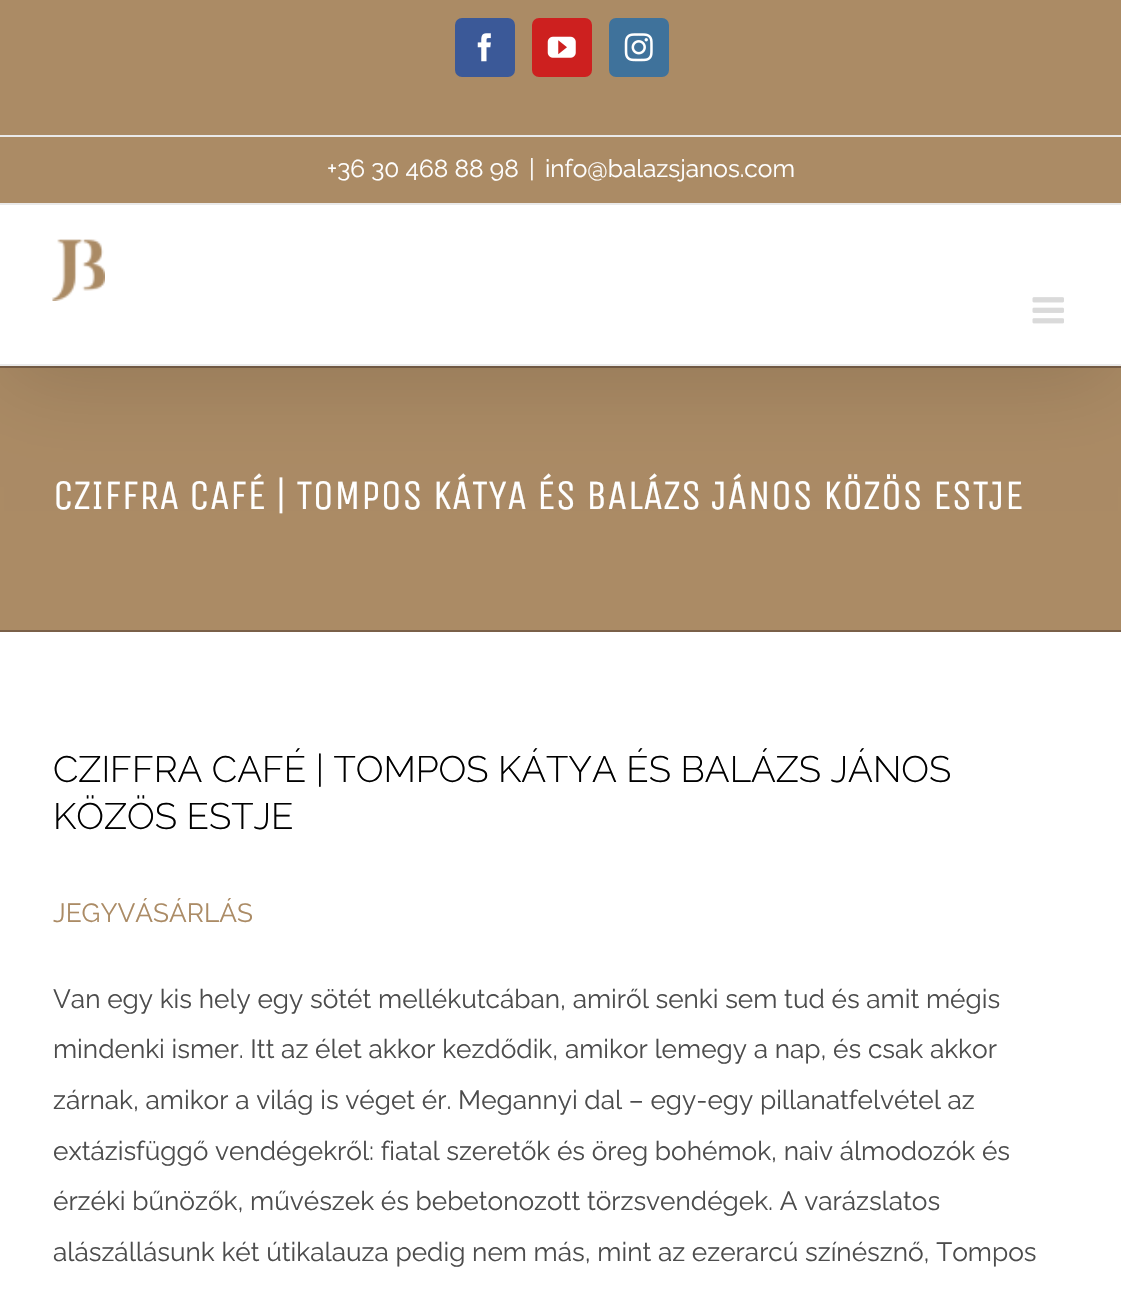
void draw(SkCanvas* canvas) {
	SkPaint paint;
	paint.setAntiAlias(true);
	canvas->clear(0xffffffff);
	paint.setColor(0xffab8b65);
	canvas->drawRect(SkRect::MakeXYWH(0, 368, 1121, 262), paint);
	paint.setColor(0xff7a6048);
	canvas->drawRect(SkRect::MakeXYWH(0, 366, 1121, 2), paint);
	paint.setColor(0x24000000);
	paint.setMaskFilter(SkMaskFilter::MakeBlur(kNormal_SkBlurStyle, 44));
	canvas->drawRect(SkRect::MakeXYWH(4, 21, 1114, 359), paint);
	paint.setMaskFilter(nullptr);
	paint.setColor(0xffab8b65);
	canvas->drawRect(SkRect::MakeXYWH(0, 0, 1121, 203), paint);
	paint.setColor(0xffeaeaea);
	canvas->drawRect(SkRect::MakeXYWH(0, 203, 1121, 2), paint);
	canvas->drawRect(SkRect::MakeXYWH(0, 135, 1121, 2), paint);
	paint.setColor(0xff3b5998);
	canvas->drawRoundRect(SkRect::MakeXYWH(456, 19, 58, 57), 6, 6, paint);
	paint.setStroke(true);
	paint.setStrokeWidth(2);
	canvas->drawRoundRect(SkRect::MakeXYWH(456, 19, 58, 57), 6, 6, paint);
	canvas->drawImageRect(SkImages::DeferredFromEncodedData(SkData::MakeFromFileName("img1.png")), SkRect::MakeXYWH(477, 33, 14, 29), SkSamplingOptions());
	paint.setStroke(false);
	paint.setColor(0xffcd201f);
	canvas->drawRoundRect(SkRect::MakeXYWH(533, 19, 58, 57), 6, 6, paint);
	paint.setStroke(true);
	canvas->drawRoundRect(SkRect::MakeXYWH(533, 19, 58, 57), 6, 6, paint);
	canvas->drawImageRect(SkImages::DeferredFromEncodedData(SkData::MakeFromFileName("img2.png")), SkRect::MakeXYWH(547, 36, 29, 22), SkSamplingOptions());
	paint.setStroke(false);
	paint.setColor(0xff3f729b);
	canvas->drawRoundRect(SkRect::MakeXYWH(610, 19, 58, 57), 6, 6, paint);
	paint.setStroke(true);
	canvas->drawRoundRect(SkRect::MakeXYWH(610, 19, 58, 57), 6, 6, paint);
	canvas->drawImageRect(SkImages::DeferredFromEncodedData(SkData::MakeFromFileName("img3.png")), SkRect::MakeXYWH(624, 33, 29, 29), SkSamplingOptions());
	SkFont f1(fontMgr->matchFamilyStyle("Raleway", SkFontStyle::Normal()), 24.5);
	f1.setSubpixel(true);
	paint.setStroke(false);
	paint.setColor(0xffffffff);
	canvas->drawString("+36 30 468 88 98", 327, 177, f1, paint);
	canvas->drawString("|", 529, 177, f1, paint);
	canvas->drawString("info@balazsjanos.com", 545, 177, f1, paint);
	canvas->drawRect(SkRect::MakeXYWH(0, 205, 1121, 159), paint);
	paint.setColor(0xffeaeaea);
	canvas->drawRect(SkRect::MakeXYWH(0, 364, 1121, 2), paint);
	canvas->drawImageRect(SkImages::DeferredFromEncodedData(SkData::MakeFromFileName("img4.png")), SkRect::MakeXYWH(52, 239, 53, 62), SkSamplingOptions());
	canvas->drawImageRect(SkImages::DeferredFromEncodedData(SkData::MakeFromFileName("img5.png")), SkRect::MakeXYWH(1032, 297, 32, 27), SkSamplingOptions());
	paint.setColor(0xff7a6048);
	canvas->drawRect(SkRect::MakeXYWH(0, 630, 1121, 2), paint);
	SkFont f2(fontMgr->matchFamilyStyle("Unica One", SkFontStyle::Normal()), 42);
	f2.setSubpixel(true);
	paint.setColor(0xffffffff);
	canvas->drawString("CZIFFRA CAFÉ | TOMPOS KÁTYA ÉS BALÁZS JÁNOS KÖZÖS ESTJE", 53, 509, f2, paint);
	SkFont f3(fontMgr->matchFamilyStyle("Raleway", SkFontStyle(300, SkFontStyle::kNormal_Width, SkFontStyle::kUpright_Slant)), 36.75);
	f3.setSubpixel(true);
	paint.setColor(0xff000000);
	canvas->drawString("CZIFFRA CAFÉ | TOMPOS KÁTYA ÉS BALÁZS JÁNOS", 53, 782, f3, paint);
	canvas->drawString("KÖZÖS ESTJE", 53, 829, f3, paint);
	SkFont f4(fontMgr->matchFamilyStyle("Raleway", SkFontStyle::Normal()), 26.25);
	f4.setSubpixel(true);
	paint.setColor(0xffab8b65);
	canvas->drawString("JEGYVÁSÁRLÁS", 53, 922, f4, paint);
	paint.setColor(0xff4c4c4c);
	canvas->drawString("Van egy kis hely egy sötét mellékutcában, amiről senki sem tud és amit mégis", 53, 1008, f4, paint);
	canvas->drawString("mindenki ismer. Itt az élet akkor kezdődik, amikor lemegy a nap, és csak akkor", 53, 1058, f4, paint);
	canvas->drawString("zárnak, amikor a világ is véget ér. Megannyi dal – egy-egy pillanatfelvétel az", 53, 1109, f4, paint);
	canvas->drawString("extázisfüggő vendégekről: fiatal szeretők és öreg bohémok, naiv álmodozók és", 53, 1160, f4, paint);
	canvas->drawString("érzéki bűnözők, művészek és bebetonozott törzsvendégek. A varázslatos", 53, 1210, f4, paint);
	canvas->drawString("alászállásunk két útikalauza pedig nem más, mint az ezerarcú színésznő, Tompos", 53, 1261, f4, paint);
}
